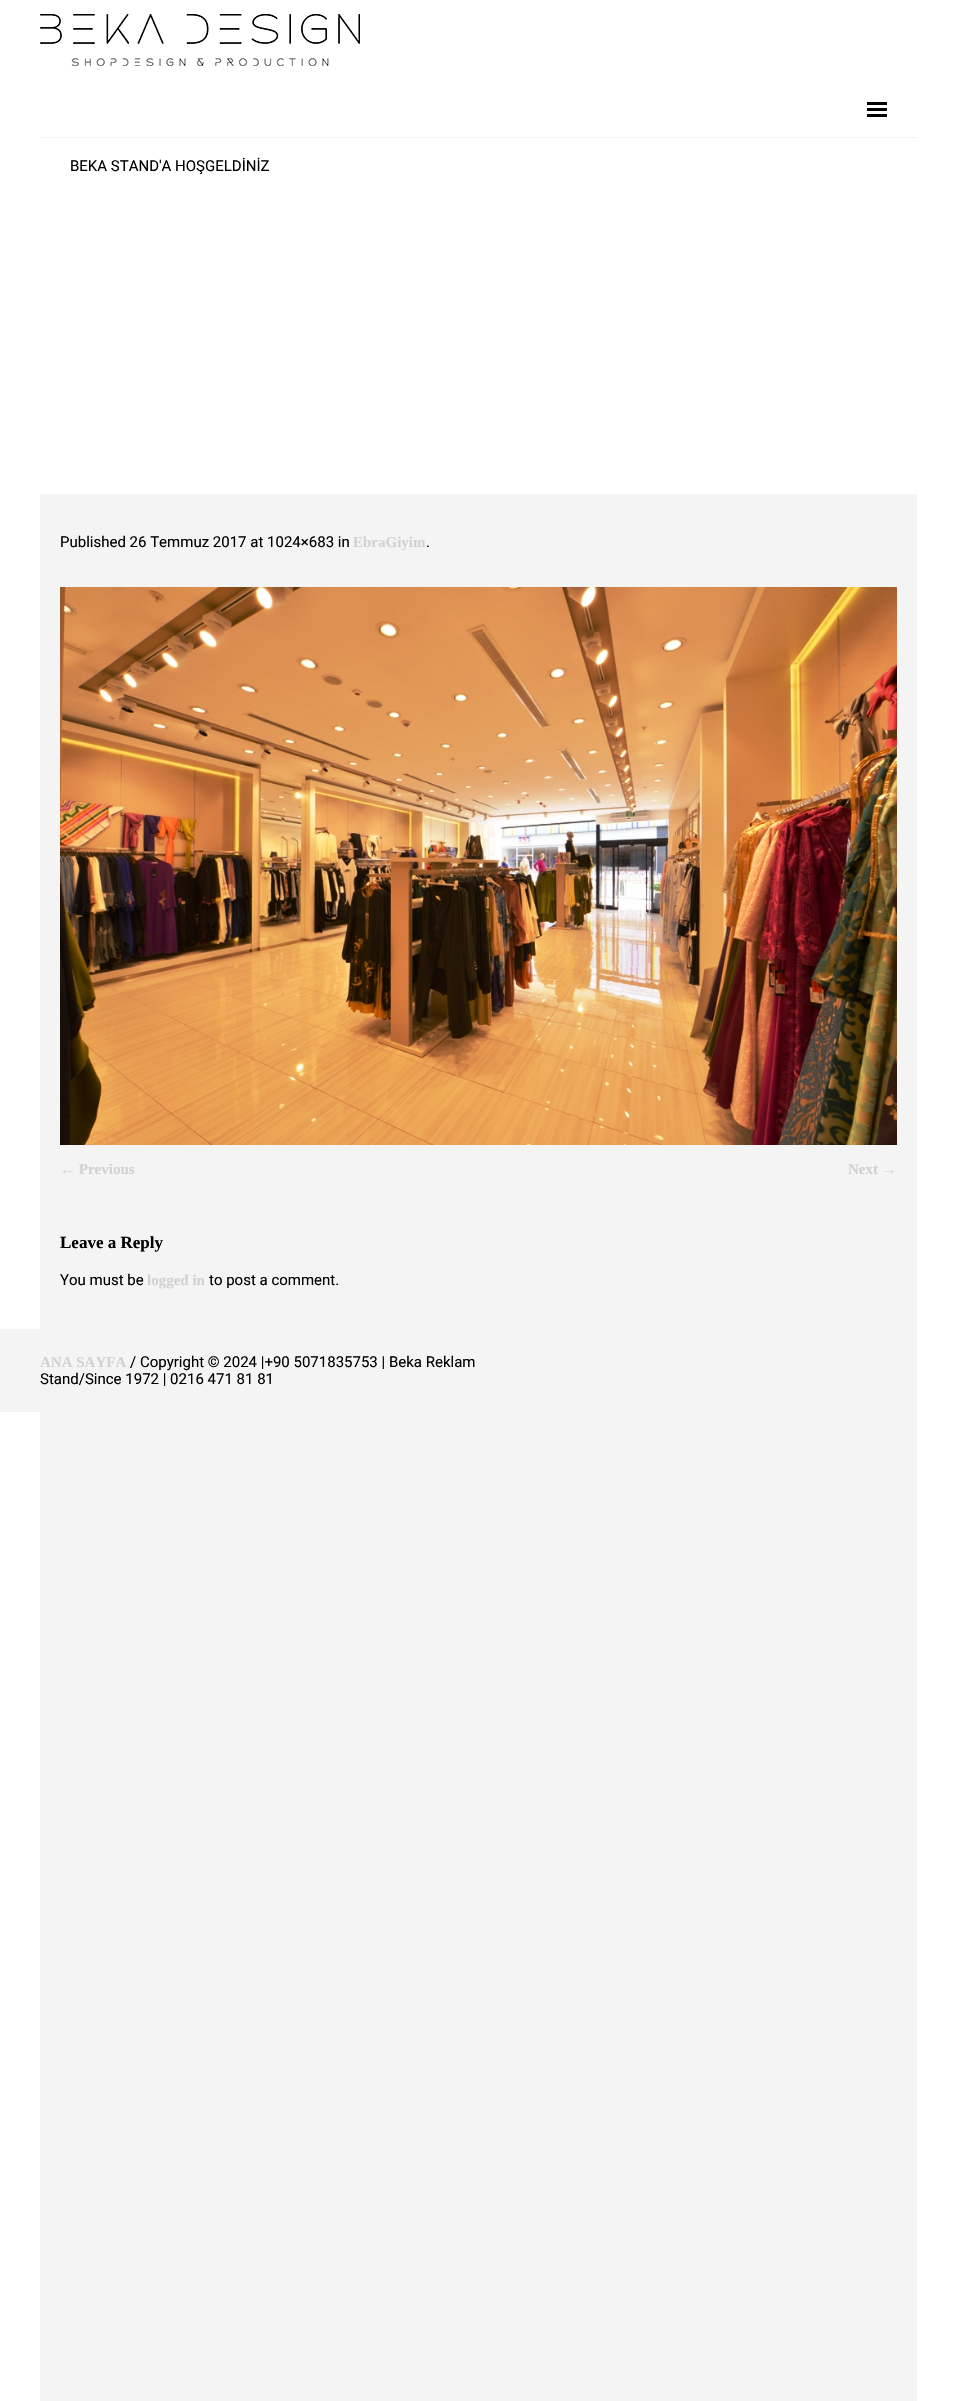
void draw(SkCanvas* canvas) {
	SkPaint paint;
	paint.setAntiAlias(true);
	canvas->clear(0xfff4f4f4);
	paint.setColor(0xffffffff);
	canvas->drawRect(SkRect::MakeXYWH(0, 194, 40, 2207), paint);
	canvas->drawRect(SkRect::MakeXYWH(0, 0, 957, 194), paint);
	canvas->drawImageRect(SkImages::DeferredFromEncodedData(SkData::MakeFromFileName("img1.png")), SkRect::MakeXYWH(40, 14, 320, 52), SkSamplingOptions());
	paint.setColor(0xfff4f4f4);
	canvas->drawRect(SkRect::MakeXYWH(40, 137, 877, 1), paint);
	paint.setColor(0xff000000);
	canvas->drawRect(SkRect::MakeXYWH(867, 114, 20, 3), paint);
	canvas->drawRect(SkRect::MakeXYWH(867, 102, 20, 3), paint);
	canvas->drawRect(SkRect::MakeXYWH(867, 108, 20, 3), paint);
	SkFont f1(fontMgr->matchFamilyStyle("Roboto", SkFontStyle::Normal()), 15);
	f1.setSubpixel(true);
	canvas->drawString("BEKA STAND'A HOŞGELDİNİZ", 70, 171, f1, paint);
	paint.setColor(0xffffffff);
	canvas->drawRect(SkRect::MakeXYWH(40, 194, 877, 300), paint);
	paint.setColor(0xff000000);
	canvas->drawString("Published 26 Temmuz 2017 at 1024×683 in", 60, 547, f1, paint);
	SkFont f2(fontMgr->matchFamilyStyle("Liberation Serif", SkFontStyle::Bold()), 15);
	f2.setSubpixel(true);
	paint.setColor(0xffd2d2d5);
	canvas->drawString("EbraGiyim", 353, 547, f2, paint);
	paint.setColor(0xff000000);
	canvas->drawString(".", 426, 547, f1, paint);
	canvas->drawImageRect(SkImages::DeferredFromEncodedData(SkData::MakeFromFileName("img2.png")), SkRect::MakeXYWH(60, 587, 837, 558), SkSamplingOptions());
	paint.setColor(0xffd2d2d5);
	canvas->drawString("← Previous", 60, 1174, f2, paint);
	canvas->drawString("Next →", 848, 1174, f2, paint);
	SkFont f3(fontMgr->matchFamilyStyle("Liberation Serif", SkFontStyle::Bold()), 17);
	f3.setSubpixel(true);
	paint.setColor(0xff000000);
	canvas->drawString("Leave a Reply", 60, 1248, f3, paint);
	canvas->drawString("You must be", 60, 1285, f1, paint);
	paint.setColor(0xffd2d2d5);
	canvas->drawString("logged in", 147, 1285, f2, paint);
	paint.setColor(0xff000000);
	canvas->drawString("to post a comment.", 209, 1285, f1, paint);
	paint.setColor(0xfff4f4f4);
	canvas->drawRect(SkRect::MakeXYWH(0, 1329, 40, 83), paint);
	paint.setColor(0xffd2d2d5);
	canvas->drawString("ANA SAYFA", 40, 1367, f2, paint);
	paint.setColor(0xff000000);
	canvas->drawString("/ Copyright © 2024 |+90 5071835753 | Beka Reklam", 130, 1367, f1, paint);
	canvas->drawString("Stand/Since 1972 | 0216 471 81 81", 40, 1384, f1, paint);
	paint.setColor(0xffffffff);
	canvas->drawRect(SkRect::MakeXYWH(917, 194, 40, 2207), paint);
}
